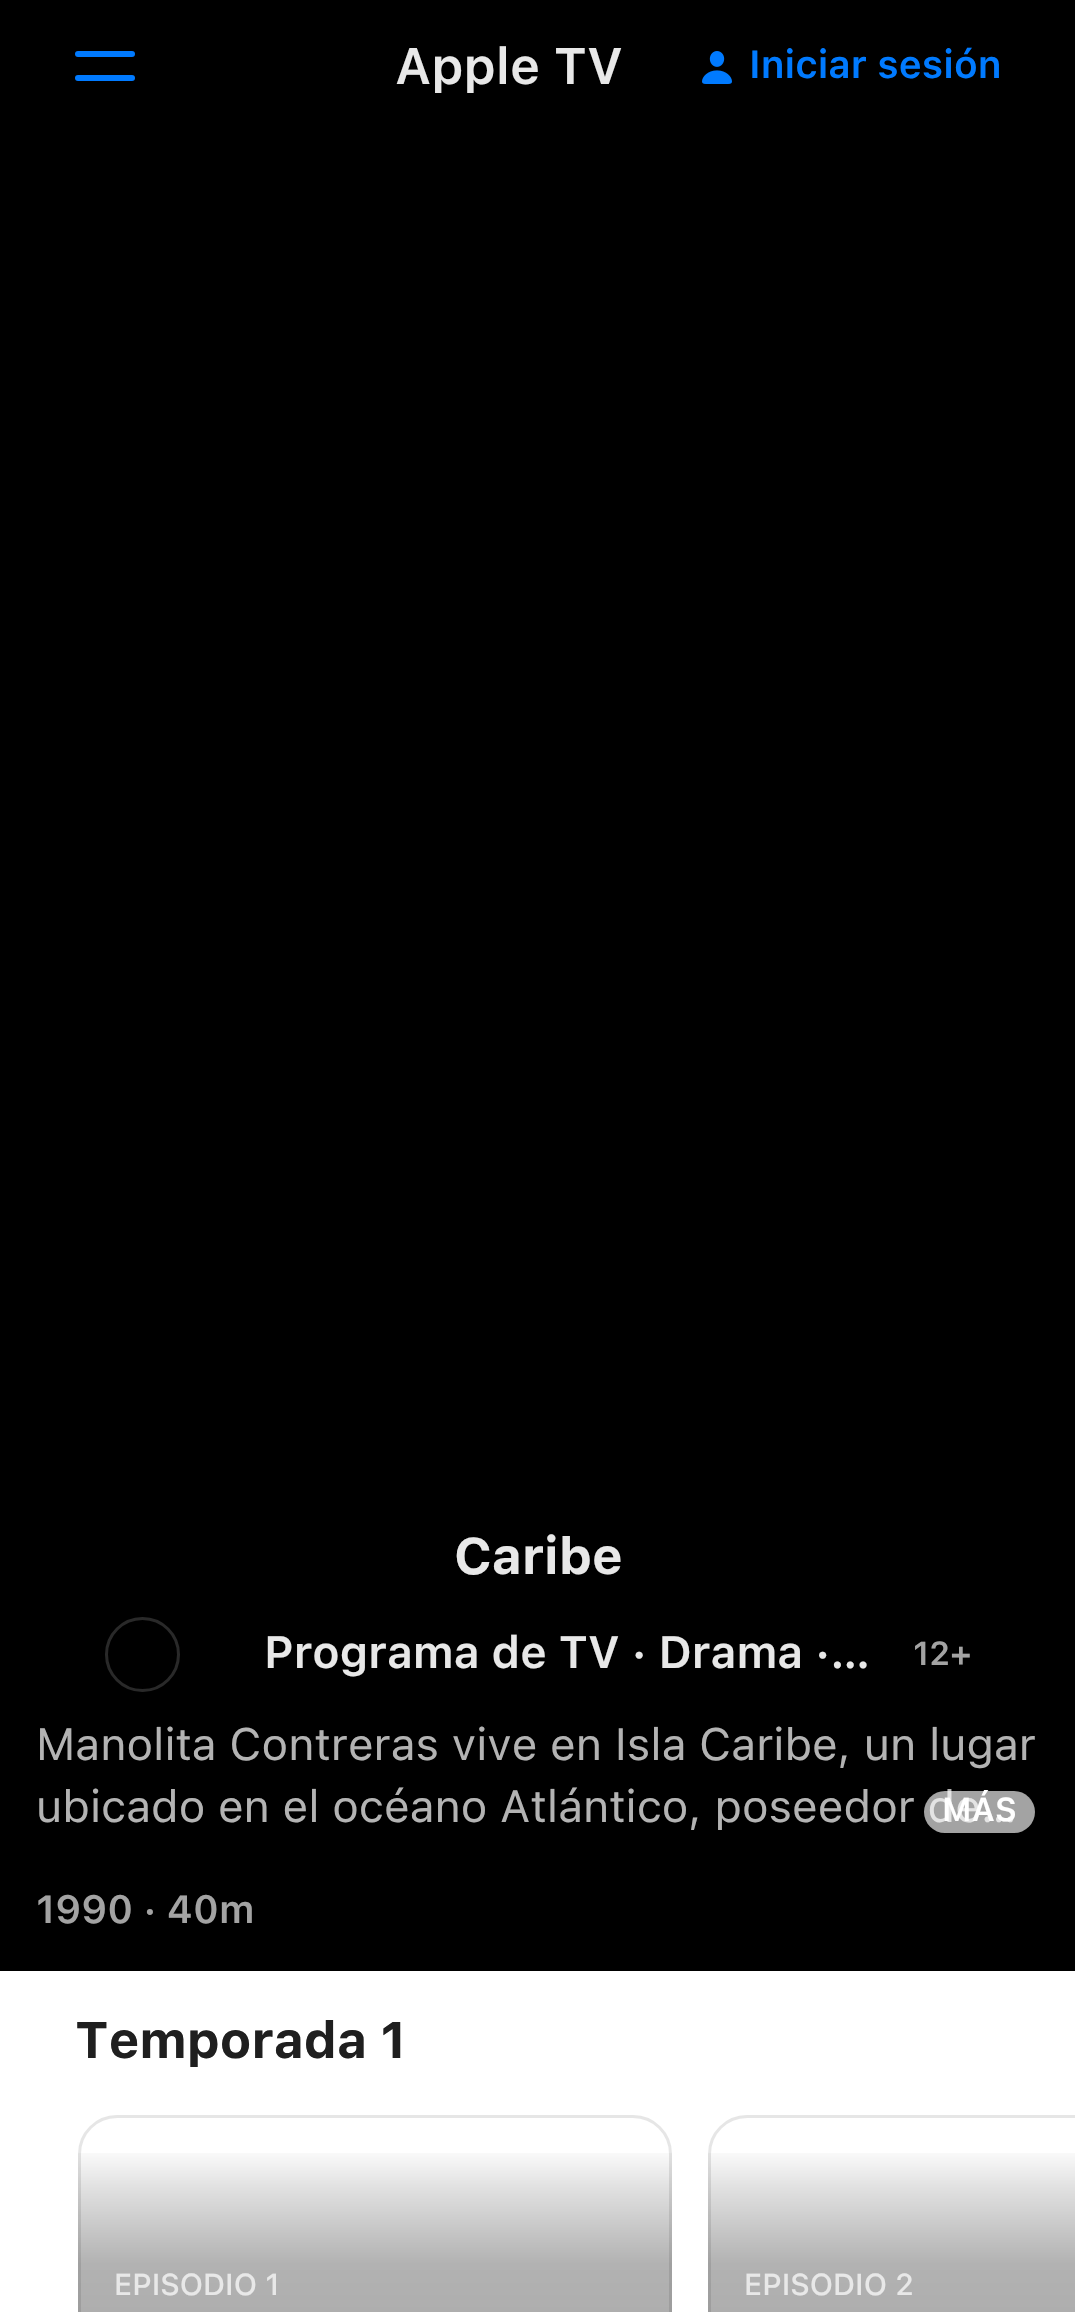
void draw(SkCanvas* canvas) {
	SkPaint paint;
	paint.setAntiAlias(true);
	canvas->clear(0xffffffff);
	paint.setColor(0xff000000);
	canvas->drawRect(SkRect::MakeXYWH(0, 0, 1075, 1971), paint);
	paint.setColor(0xff007aff);
	canvas->drawRoundRect(SkRect::MakeXYWH(75, 51, 60, 6), 3, 3, paint);
	canvas->drawRoundRect(SkRect::MakeXYWH(75, 75, 60, 6), 3, 3, paint);
	SkFont f1(fontMgr->matchFamilyStyle("SF", SkFontStyle(600, SkFontStyle::kNormal_Width, SkFontStyle::kUpright_Slant)), 51);
	f1.setSubpixel(true);
	paint.setColor(0xffe8e8e8);
	canvas->drawString("Apple TV", 395, 84, f1, paint);
	canvas->drawImageRect(SkImages::DeferredFromEncodedData(SkData::MakeFromFileName("img1.png")), SkRect::MakeXYWH(702, 51, 30, 33), SkSamplingOptions());
	SkFont f2(fontMgr->matchFamilyStyle("SF", SkFontStyle(600, SkFontStyle::kNormal_Width, SkFontStyle::kUpright_Slant)), 39);
	f2.setSubpixel(true);
	paint.setColor(0xff007aff);
	canvas->drawString("Iniciar sesión", 749, 78, f2, paint);
	SkFont f3(fontMgr->matchFamilyStyle("SF", SkFontStyle::Bold()), 51);
	f3.setSubpixel(true);
	paint.setColor(0xffe8e8e8);
	canvas->drawString("Caribe", 454, 1574, f3, paint);
	paint.setStroke(true);
	paint.setStrokeWidth(3);
	paint.setColor(0xff292929);
	canvas->drawCircle(142.5, 1654.5, 36, paint);
	SkFont f4(fontMgr->matchFamilyStyle("SF", SkFontStyle(600, SkFontStyle::kNormal_Width, SkFontStyle::kUpright_Slant)), 45);
	f4.setSubpixel(true);
	paint.setStroke(false);
	paint.setColor(0xffe8e8e8);
	canvas->drawString("Programa de TV · Drama ·…", 264, 1668, f4, paint);
	SkFont f5(fontMgr->matchFamilyStyle("SF", SkFontStyle(600, SkFontStyle::kNormal_Width, SkFontStyle::kUpright_Slant)), 33);
	f5.setSubpixel(true);
	paint.setColor(0xffa3a3a3);
	canvas->drawString("12+", 913, 1665, f5, paint);
	SkFont f6(fontMgr->matchFamilyStyle("SF", SkFontStyle::Normal()), 45);
	f6.setSubpixel(true);
	paint.setColor(0xffb3b3b3);
	canvas->drawString("Manolita Contreras vive en Isla Caribe, un lugar", 36, 1760, f6, paint);
	canvas->drawString("ubicado en el océano Atlántico, poseedor de…", 36, 1822, f6, paint);
	paint.setColor(0xa3ffffff);
	canvas->drawRoundRect(SkRect::MakeXYWH(924, 1791, 111, 42), 21, 21, paint);
	paint.setColor(0xffffffff);
	canvas->drawString("MÁS", 942, 1821, f5, paint);
	paint.setColor(0xffa3a3a3);
	canvas->drawString("1990 · 40m", 36, 1923, f2, paint);
	paint.setColor(0xff1f1f1f);
	canvas->drawString("Temporada 1", 75, 2058, f3, paint);
	paint.setStroke(true);
	paint.setColor(0xffe6e6e6);
	canvas->drawRoundRect(SkRect::MakeXYWH(79.5, 2116.5, 591, 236), 37.5, 37.5, paint);
	paint.setStroke(false);
	{
		const SkColor colors[] = {0x00000000, 0x21000000, 0x36000000, 0x4d000000, 0x66000000};
		const float stops[] = {0, 0.11, 0.19, 0.28, 1};
		const SkPoint ends[] = {{375, 2145}, {375, 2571}};
		paint.setShader(SkGradientShader::MakeLinear(ends, colors, stops, 5, SkTileMode::kClamp));
		paint.setAlpha(255);
	}
	canvas->drawRect(SkRect::MakeXYWH(78, 2153, 594, 159), paint);
	SkFont f7(fontMgr->matchFamilyStyle("SF", SkFontStyle(500, SkFontStyle::kNormal_Width, SkFontStyle::kUpright_Slant)), 30);
	f7.setSubpixel(true);
	paint.setShader(nullptr);
	paint.setColor(0xffe8e8e8);
	canvas->drawString("EPISODIO 1", 114, 2295, f7, paint);
	paint.setStroke(true);
	paint.setColor(0xffe6e6e6);
	canvas->drawRoundRect(SkRect::MakeXYWH(709.5, 2116.5, 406, 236), 37.5, 37.5, paint);
	paint.setStroke(false);
	{
		const SkColor colors[] = {0x00000000, 0x21000000, 0x36000000, 0x4d000000, 0x66000000};
		const float stops[] = {0, 0.11, 0.19, 0.28, 1};
		const SkPoint ends[] = {{1005, 2145}, {1005, 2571}};
		paint.setShader(SkGradientShader::MakeLinear(ends, colors, stops, 5, SkTileMode::kClamp));
		paint.setAlpha(255);
	}
	canvas->drawRect(SkRect::MakeXYWH(708, 2153, 367, 159), paint);
	paint.setShader(nullptr);
	paint.setColor(0xffe8e8e8);
	canvas->drawString("EPISODIO 2", 744, 2295, f7, paint);
}
